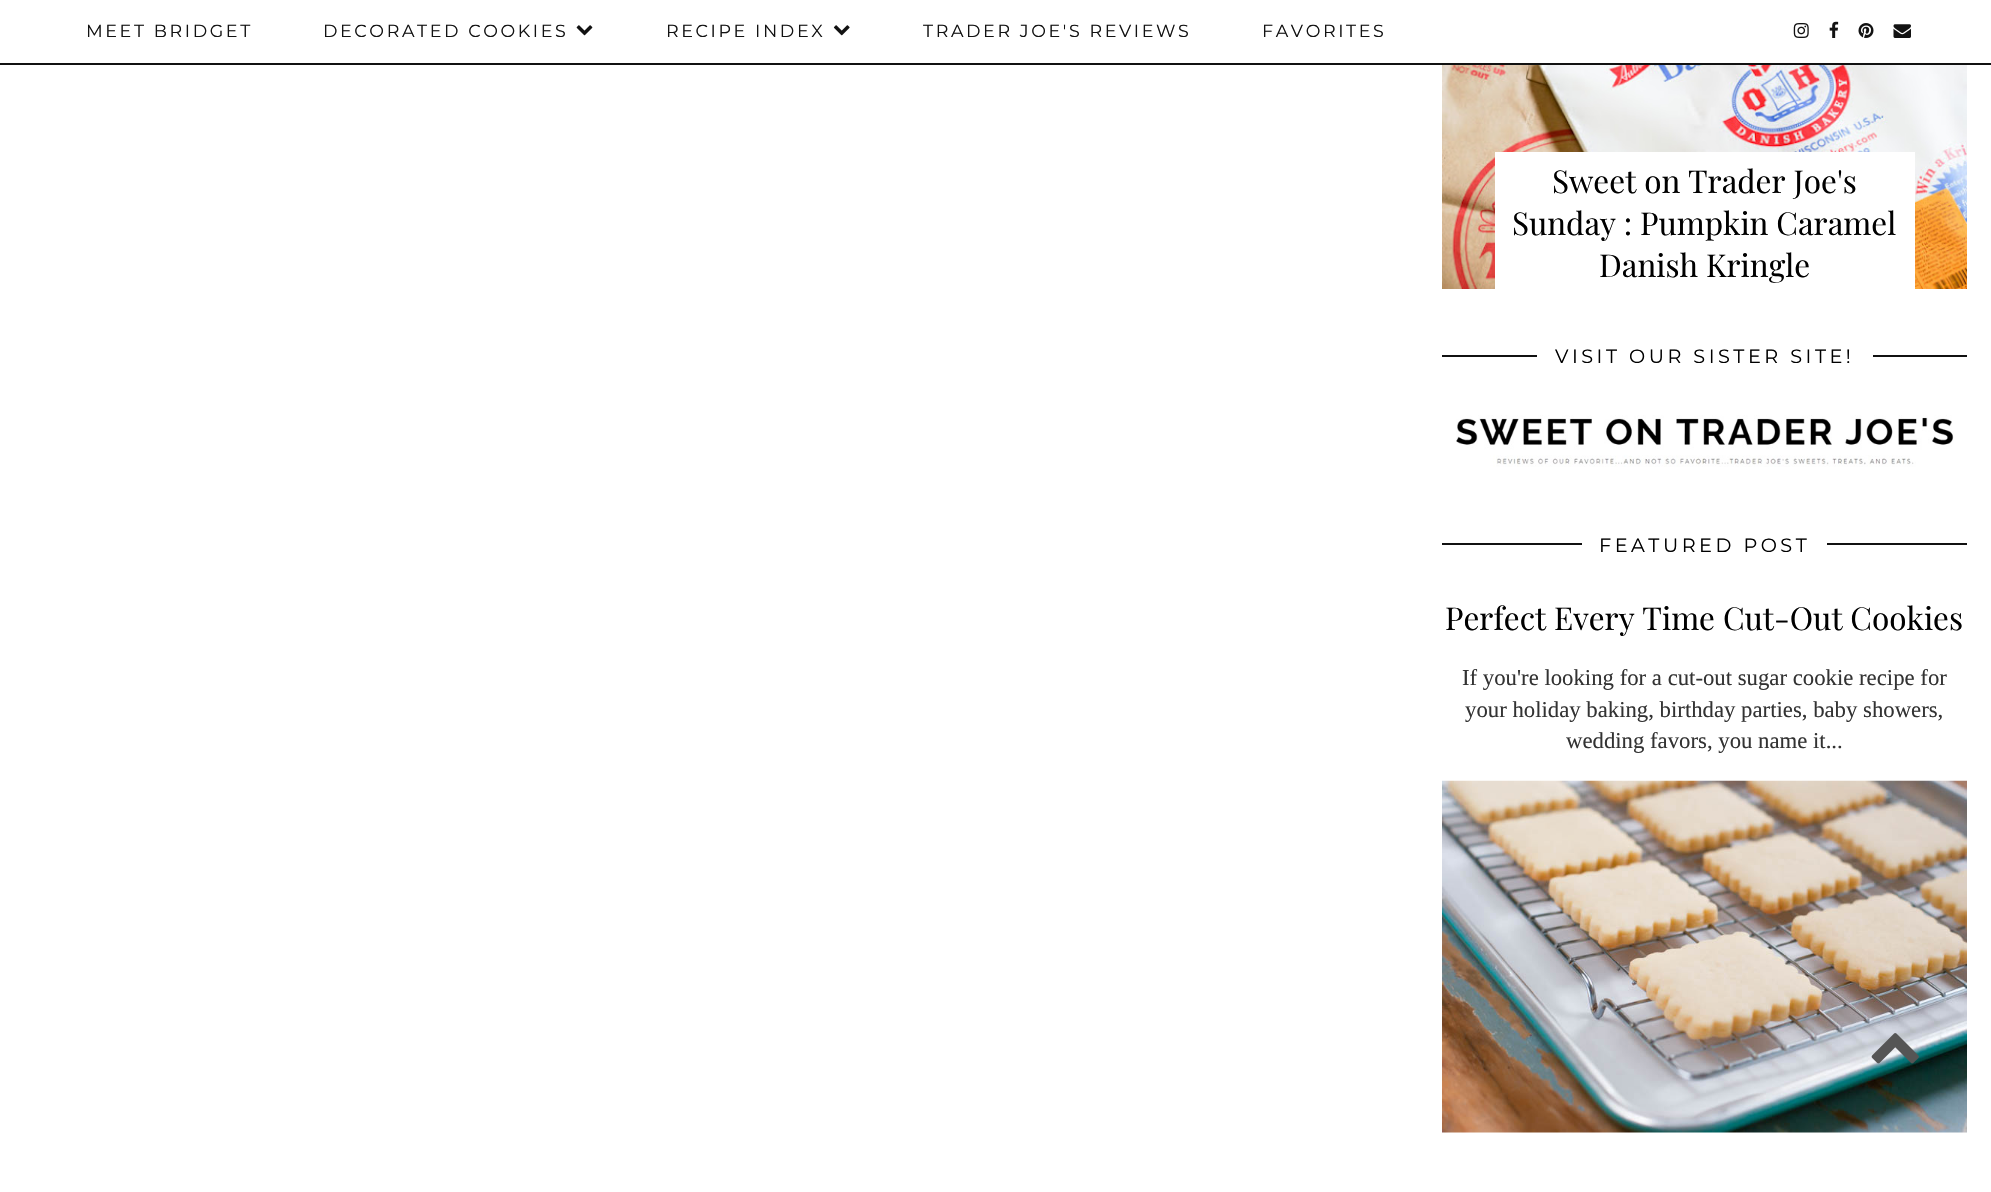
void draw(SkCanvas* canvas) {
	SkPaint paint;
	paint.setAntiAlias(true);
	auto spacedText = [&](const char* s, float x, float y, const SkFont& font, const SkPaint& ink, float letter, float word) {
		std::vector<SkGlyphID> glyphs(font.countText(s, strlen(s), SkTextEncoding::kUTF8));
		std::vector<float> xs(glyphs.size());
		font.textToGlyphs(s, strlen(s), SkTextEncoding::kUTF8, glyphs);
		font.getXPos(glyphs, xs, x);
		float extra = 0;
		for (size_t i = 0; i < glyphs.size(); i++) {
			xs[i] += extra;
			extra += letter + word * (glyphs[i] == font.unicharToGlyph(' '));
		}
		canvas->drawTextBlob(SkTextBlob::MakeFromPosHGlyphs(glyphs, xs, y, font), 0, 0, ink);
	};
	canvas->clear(0xffffffff);
	paint.setColor(0xff111111);
	canvas->drawRect(SkRect::MakeXYWH(0, 63, 1991, 2), paint);
	SkFont f1(fontMgr->matchFamilyStyle("Montserrat", SkFontStyle(100, SkFontStyle::kNormal_Width, SkFontStyle::kUpright_Slant)), 17.5);
	f1.setSubpixel(true);
	paint.setColor(0xff121212);
	spacedText("MEET BRIDGET", 86, 37, f1, paint, 2.6, 0);
	spacedText("DECORATED COOKIES", 323, 37, f1, paint, 2.6, 0);
	canvas->drawImageRect(SkImages::DeferredFromEncodedData(SkData::MakeFromFileName("img1.png")), SkRect::MakeXYWH(576, 25, 17, 11), SkSamplingOptions());
	spacedText("RECIPE INDEX", 666, 37, f1, paint, 2.6, 0);
	canvas->drawImageRect(SkImages::DeferredFromEncodedData(SkData::MakeFromFileName("img2.png")), SkRect::MakeXYWH(833, 25, 17, 11), SkSamplingOptions());
	spacedText("TRADER JOE'S REVIEWS", 923, 37, f1, paint, 2.6, 0);
	spacedText("FAVORITES", 1262, 37, f1, paint, 2.6, 0);
	canvas->drawImageRect(SkImages::DeferredFromEncodedData(SkData::MakeFromFileName("img3.png")), SkRect::MakeXYWH(1793, 23, 16, 15), SkSamplingOptions());
	canvas->drawImageRect(SkImages::DeferredFromEncodedData(SkData::MakeFromFileName("img4.png")), SkRect::MakeXYWH(1829, 21, 10, 17), SkSamplingOptions());
	canvas->drawImageRect(SkImages::DeferredFromEncodedData(SkData::MakeFromFileName("img5.png")), SkRect::MakeXYWH(1858, 23, 16, 15), SkSamplingOptions());
	canvas->drawImageRect(SkImages::DeferredFromEncodedData(SkData::MakeFromFileName("img6.png")), SkRect::MakeXYWH(1893, 24, 18, 14), SkSamplingOptions());
	canvas->drawImageRect(SkImages::DeferredFromEncodedData(SkData::MakeFromFileName("img7.png")), SkRect::MakeXYWH(1442, 65, 525, 224), SkSamplingOptions());
	paint.setColor(0xffffffff);
	canvas->drawRect(SkRect::MakeXYWH(1495, 152, 420, 137), paint);
	SkFont f2(fontMgr->matchFamilyStyle("Playfair Display", SkFontStyle::Normal()), 31.5);
	f2.setSubpixel(true);
	paint.setColor(0xff000000);
	canvas->drawString("Sweet on Trader Joe's", 1552, 193, f2, paint);
	canvas->drawString("Sunday : Pumpkin Caramel", 1512, 235, f2, paint);
	canvas->drawString("Danish Kringle", 1599, 277, f2, paint);
	paint.setColor(0xff111111);
	canvas->drawRect(SkRect::MakeXYWH(1442, 355, 525, 2), paint);
	paint.setColor(0xffffffff);
	canvas->drawRect(SkRect::MakeXYWH(1537, 355, 336, 2), paint);
	SkFont f3(fontMgr->matchFamilyStyle("Montserrat", SkFontStyle(100, SkFontStyle::kNormal_Width, SkFontStyle::kUpright_Slant)), 19.25);
	f3.setSubpixel(true);
	paint.setColor(0xff000000);
	spacedText("VISIT OUR SISTER SITE!", 1555, 363, f3, paint, 3.5, 0);
	canvas->drawImageRect(SkImages::DeferredFromEncodedData(SkData::MakeFromFileName("img8.png")), SkRect::MakeXYWH(1456, 415, 498, 52), SkSamplingOptions());
	paint.setColor(0xff111111);
	canvas->drawRect(SkRect::MakeXYWH(1442, 543, 525, 2), paint);
	paint.setColor(0xffffffff);
	canvas->drawRect(SkRect::MakeXYWH(1582, 543, 245, 2), paint);
	paint.setColor(0xff000000);
	spacedText("FEATURED POST", 1599, 552, f3, paint, 3.5, 0);
	canvas->drawString("Perfect Every Time Cut-Out Cookies", 1445, 630, f2, paint);
	SkFont f4(fontMgr->matchFamilyStyle("Liberation Serif", SkFontStyle::Normal()), 22.75);
	f4.setSubpixel(true);
	paint.setColor(0xff333333);
	canvas->drawString("If you're looking for a cut-out sugar cookie recipe for", 1462, 685, f4, paint);
	canvas->drawString("your holiday baking, birthday parties, baby showers,", 1465, 717, f4, paint);
	canvas->drawString("wedding favors, you name it...", 1566, 748, f4, paint);
	canvas->drawImageRect(SkImages::DeferredFromEncodedData(SkData::MakeFromFileName("img9.png")), SkRect::MakeXYWH(1442, 780, 525, 353), SkSamplingOptions());
	canvas->drawImageRect(SkImages::DeferredFromEncodedData(SkData::MakeFromFileName("img10.png")), SkRect::MakeXYWH(1871, 1033, 48, 31), SkSamplingOptions());
}
